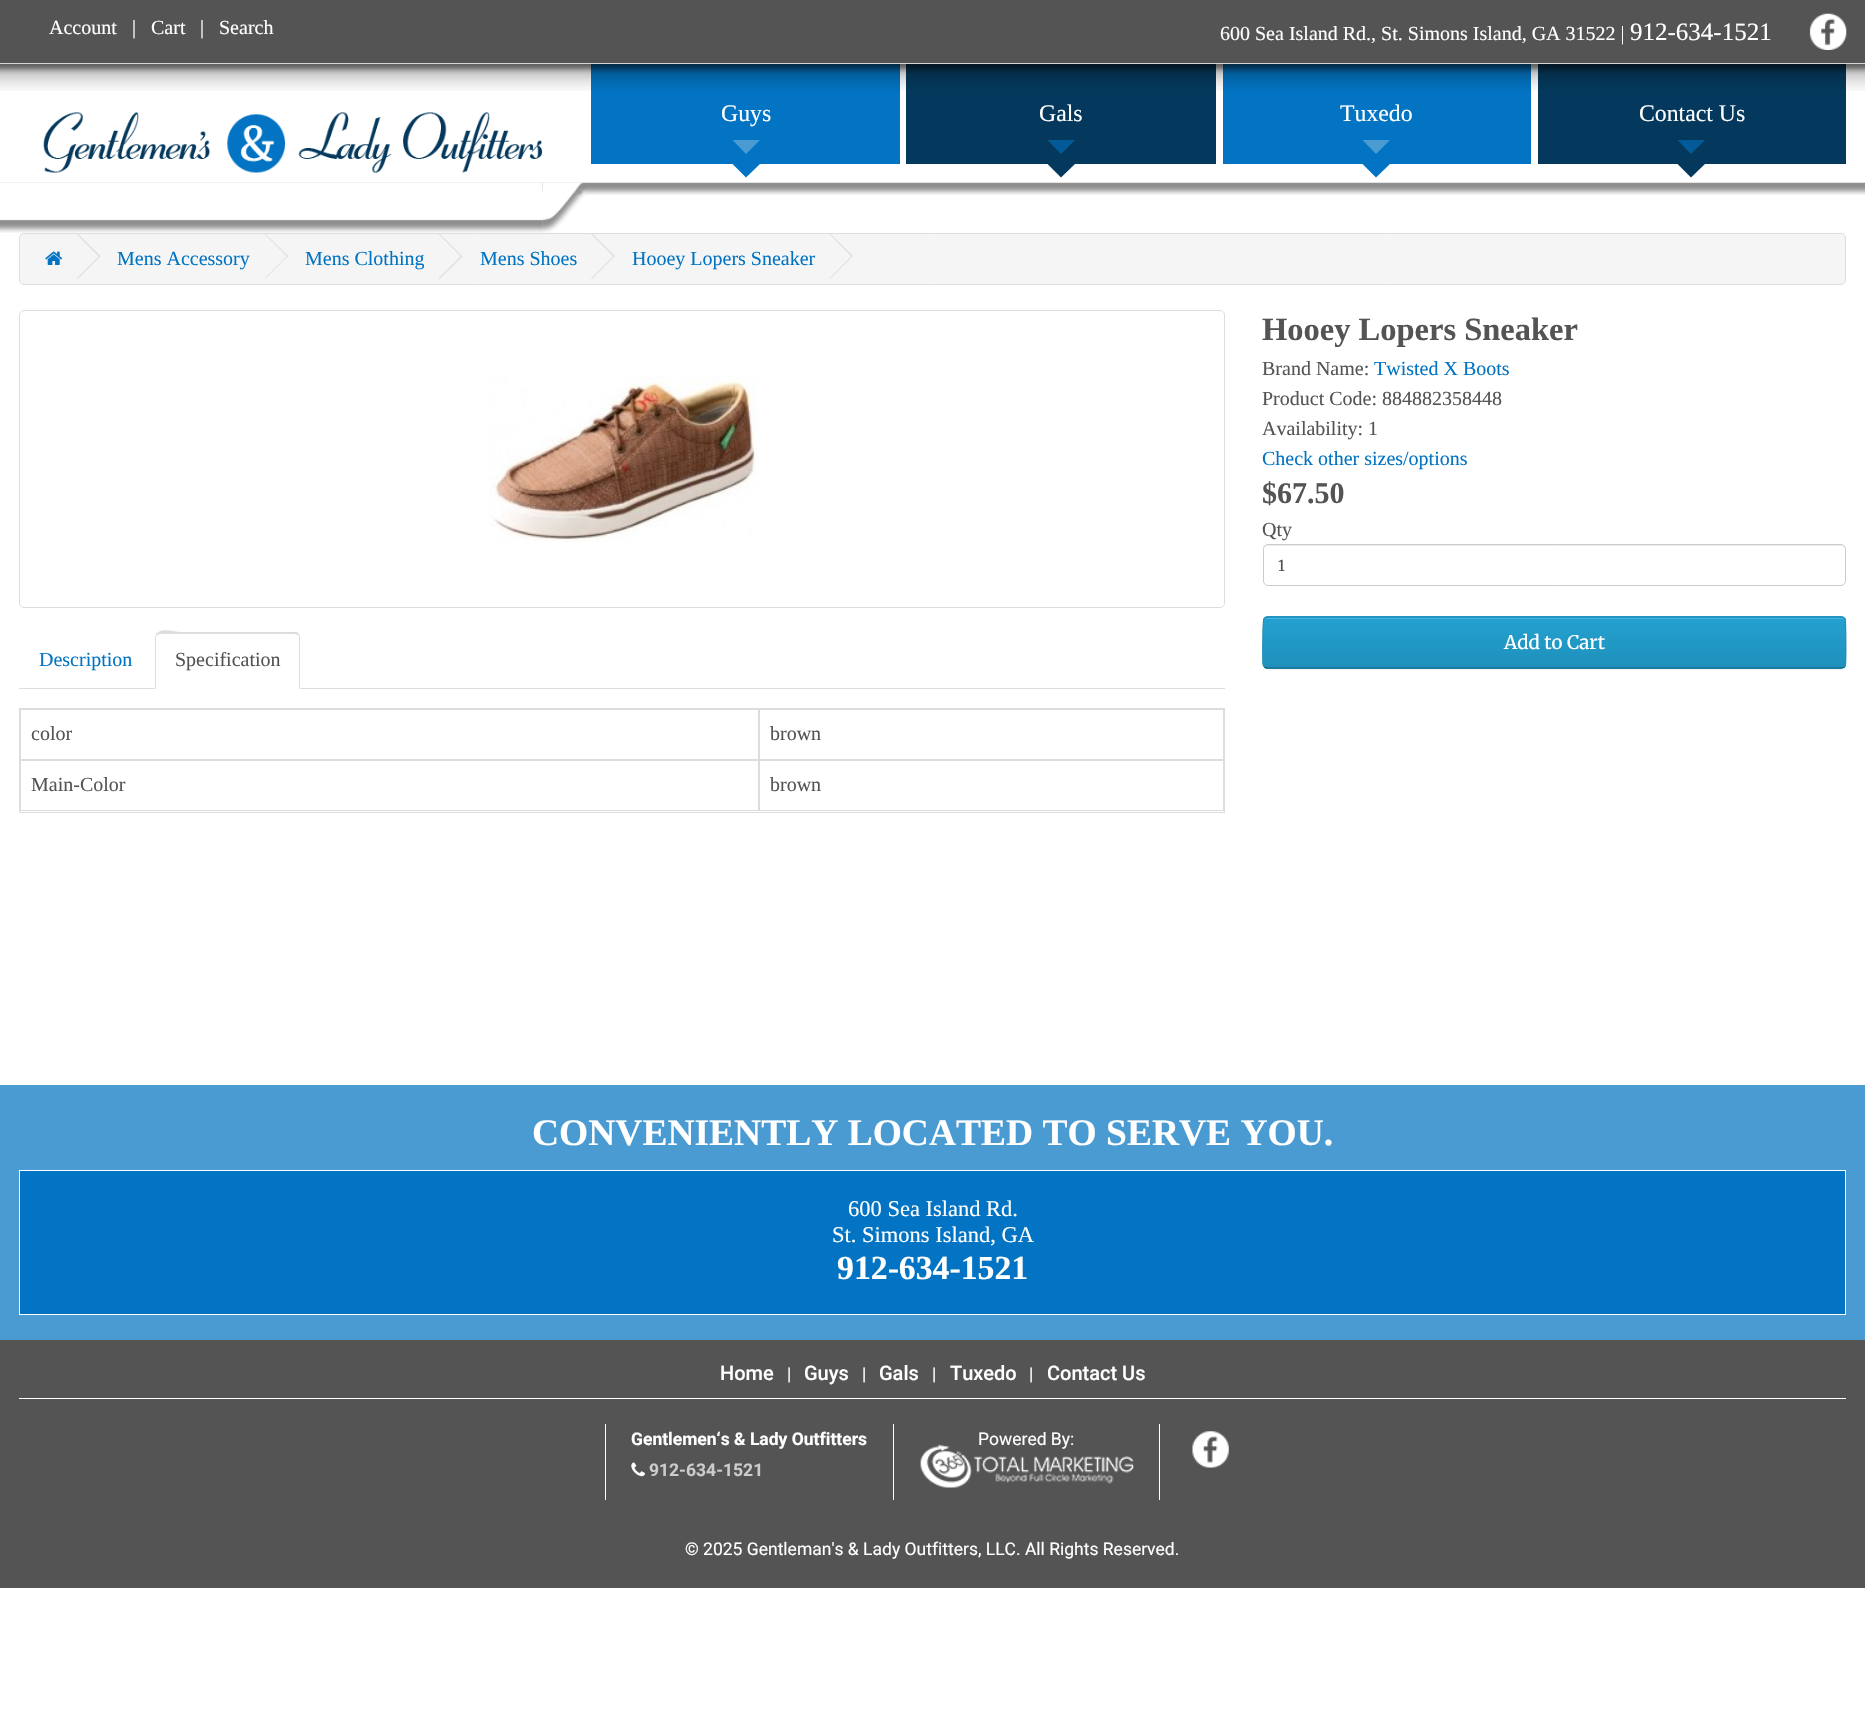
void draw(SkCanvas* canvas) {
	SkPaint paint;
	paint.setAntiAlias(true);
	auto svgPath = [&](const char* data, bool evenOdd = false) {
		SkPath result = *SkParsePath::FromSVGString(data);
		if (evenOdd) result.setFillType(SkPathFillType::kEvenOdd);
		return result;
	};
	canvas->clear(0xffffffff);
	paint.setColor(0xff545454);
	canvas->drawRect(SkRect::MakeXYWH(0, 0, 1865, 63), paint);
	SkFont f1(fontMgr->matchFamilyStyle("Liberation Serif", SkFontStyle::Normal()), 20);
	f1.setSubpixel(true);
	paint.setColor(0xffffffff);
	canvas->drawString("Account", 49, 34, f1, paint);
	canvas->drawString("|", 132, 34, f1, paint);
	canvas->drawString("Cart", 151, 34, f1, paint);
	canvas->drawString("|", 200, 34, f1, paint);
	canvas->drawString("Search", 219, 34, f1, paint);
	canvas->drawString("600 Sea Island Rd., St. Simons Island, GA 31522 |", 1220, 40, f1, paint);
	SkFont f2(fontMgr->matchFamilyStyle("Liberation Serif", SkFontStyle::Normal()), 25);
	f2.setSubpixel(true);
	canvas->drawString("912-634-1521", 1630, 40, f2, paint);
	canvas->drawImageRect(SkImages::DeferredFromEncodedData(SkData::MakeFromFileName("img1.png")), SkRect::MakeXYWH(1809, 13, 38, 37), SkSamplingOptions());
	paint.setColor(0xff0274c3);
	canvas->drawRect(SkRect::MakeXYWH(591, 64, 309, 100), paint);
	paint.setColor(0xff04395d);
	canvas->drawRect(SkRect::MakeXYWH(906, 64, 310, 100), paint);
	paint.setColor(0xff0274c3);
	canvas->drawRect(SkRect::MakeXYWH(1223, 64, 308, 100), paint);
	paint.setColor(0xff04395d);
	canvas->drawRect(SkRect::MakeXYWH(1538, 64, 308, 100), paint);
	canvas->drawImageRect(SkImages::DeferredFromEncodedData(SkData::MakeFromFileName("img2.png")), SkRect::MakeXYWH(0, 63, 1865, 28), SkSamplingOptions());
	canvas->drawImageRect(SkImages::DeferredFromEncodedData(SkData::MakeFromFileName("img3.png")), SkRect::MakeXYWH(43, 112, 500, 61), SkSamplingOptions());
	canvas->drawImageRect(SkImages::DeferredFromEncodedData(SkData::MakeFromFileName("img6.png")), SkRect::MakeXYWH(0, 182, 1865, 13), SkSamplingOptions());
	canvas->drawImageRect(SkImages::DeferredFromEncodedData(SkData::MakeFromFileName("img4.png")), SkRect::MakeXYWH(0, 182, 543, 51), SkSamplingOptions());
	canvas->drawImageRect(SkImages::DeferredFromEncodedData(SkData::MakeFromFileName("img5.png")), SkRect::MakeXYWH(542, 182, 44, 51), SkSamplingOptions());
	SkFont f3(fontMgr->matchFamilyStyle("Liberation Serif", SkFontStyle::Normal()), 23.75);
	f3.setSubpixel(true);
	paint.setColor(0xffffffff);
	canvas->drawString("Guys", 721, 121, f3, paint);
	paint.setColor(0xff4b9bd3);
	canvas->drawPath(svgPath("M732.5 140H760L746 154Z"), paint);
	paint.setColor(0xff0274c3);
	canvas->drawPath(svgPath("M732.5 164H760L746 177.5Z"), paint);
	paint.setColor(0xffffffff);
	canvas->drawString("Gals", 1039, 121, f3, paint);
	paint.setColor(0xff025b98);
	canvas->drawPath(svgPath("M1047.5 140H1075L1061 154Z"), paint);
	paint.setColor(0xff04395d);
	canvas->drawPath(svgPath("M1047.5 164H1075L1061 177.5Z"), paint);
	paint.setColor(0xffffffff);
	canvas->drawString("Tuxedo", 1340, 121, f3, paint);
	paint.setColor(0xff4b9bd3);
	canvas->drawPath(svgPath("M1362.5 140H1390L1376 154Z"), paint);
	paint.setColor(0xff0274c3);
	canvas->drawPath(svgPath("M1362.5 164H1390L1376 177.5Z"), paint);
	paint.setColor(0xffffffff);
	canvas->drawString("Contact Us", 1639, 121, f3, paint);
	paint.setColor(0xff025b98);
	canvas->drawPath(svgPath("M1677.5 140H1705L1691 154Z"), paint);
	paint.setColor(0xff04395d);
	canvas->drawPath(svgPath("M1677.5 164H1705L1691 177.5Z"), paint);
	paint.setColor(0xfff5f5f5);
	canvas->drawRoundRect(SkRect::MakeXYWH(19.5, 233.5, 1826, 51), 4.5, 4.5, paint);
	paint.setStroke(true);
	paint.setStrokeWidth(1);
	paint.setColor(0xffdddddd);
	canvas->drawRoundRect(SkRect::MakeXYWH(19.5, 233.5, 1826, 51), 4.5, 4.5, paint);
	canvas->drawImageRect(SkImages::DeferredFromEncodedData(SkData::MakeFromFileName("img7.png")), SkRect::MakeXYWH(45, 251, 18, 14), SkSamplingOptions());
	paint.setStroke(false);
	canvas->drawPath(svgPath("M76.5 234L77.5 233.5L100.5 256L99.5 257Z"), paint);
	canvas->drawPath(svgPath("M76.5 278.5L99.5 255.5L100.5 256L77.5 279Z"), paint);
	paint.setColor(0xff0274c3);
	canvas->drawString("Mens Accessory", 117, 265, f1, paint);
	paint.setColor(0xffdddddd);
	canvas->drawPath(svgPath("M264.5 234L265 233.5L288 256L287.5 257Z"), paint);
	canvas->drawPath(svgPath("M264.5 278.5L287.5 255.5L288 256L265 279Z"), paint);
	paint.setColor(0xff0274c3);
	canvas->drawString("Mens Clothing", 305, 265, f1, paint);
	paint.setColor(0xffdddddd);
	canvas->drawPath(svgPath("M438.5 234L439.5 233.5L462.5 256.5L461.5 257Z"), paint);
	canvas->drawPath(svgPath("M438.5 278.5L461.5 255.5L462.5 256.5L439.5 279Z"), paint);
	paint.setColor(0xff0274c3);
	canvas->drawString("Mens Shoes", 480, 265, f1, paint);
	paint.setColor(0xffdddddd);
	canvas->drawPath(svgPath("M591 234L592 233.5L615 256L614 257Z"), paint);
	canvas->drawPath(svgPath("M591 278.5L614 255.5L615 256L592 279Z"), paint);
	paint.setColor(0xff0274c3);
	canvas->drawString("Hooey Lopers Sneaker", 632, 265, f1, paint);
	paint.setColor(0xffdddddd);
	canvas->drawPath(svgPath("M829.5 234L830 233.5L853 256L852 257Z"), paint);
	canvas->drawPath(svgPath("M829.5 278.5L852 255.5L853 256L830 279Z"), paint);
	SkFont f4(fontMgr->matchFamilyStyle("Liberation Serif", SkFontStyle::Bold()), 32.5);
	f4.setSubpixel(true);
	paint.setColor(0xff545454);
	canvas->drawString("Hooey Lopers Sneaker", 1262, 340, f4, paint);
	canvas->drawString("Brand Name:", 1262, 375, f1, paint);
	paint.setColor(0xff0274c3);
	canvas->drawString("Twisted X Boots", 1374, 375, f1, paint);
	paint.setColor(0xff545454);
	canvas->drawString("Product Code: 884882358448", 1262, 405, f1, paint);
	canvas->drawString("Availability: 1", 1262, 435, f1, paint);
	paint.setColor(0xff0274c3);
	canvas->drawString("Check other sizes/options", 1262, 465, f1, paint);
	SkFont f5(fontMgr->matchFamilyStyle("Liberation Serif", SkFontStyle::Bold()), 30);
	f5.setSubpixel(true);
	paint.setColor(0xff545454);
	canvas->drawString("$67.50", 1262, 503, f5, paint);
	canvas->drawString("Qty", 1262, 536, f1, paint);
	paint.setColor(0xffececec);
	canvas->drawPath(svgPath("M1268 546H1841C1843 546 1845 548 1845 550V549C1845 547 1843 545 1841 545H1268C1266 545 1264 547 1264 549V550C1264 548 1265 546 1268 546Z"), paint);
	paint.setStroke(true);
	paint.setColor(0xffcccccc);
	canvas->drawRoundRect(SkRect::MakeXYWH(1263.5, 544.5, 582, 41), 4.5, 4.5, paint);
	SkFont f6(fontMgr->matchFamilyStyle("Merriweather", SkFontStyle::Normal()), 15);
	f6.setSubpixel(true);
	paint.setStroke(false);
	paint.setColor(0xff545454);
	canvas->drawString("1", 1278, 571, f6, paint);
	paint.setColor(0x0d000000);
	paint.setMaskFilter(SkMaskFilter::MakeBlur(kNormal_SkBlurStyle, 1));
	canvas->drawRoundRect(SkRect::MakeXYWH(1263, 618, 583, 52), 5, 5, paint);
	paint.setMaskFilter(nullptr);
	paint.setColor(0xff229ac8);
	canvas->drawRoundRect(SkRect::MakeXYWH(1263, 616, 583, 53), 5, 5, paint);
	canvas->save();
	canvas->clipPath(svgPath("M1268 616H1841C1844 616 1846 618 1846 621V664C1846 667 1844 669 1841 669H1268C1265 669 1263 667 1263 664V621C1263 618 1265 616 1268 616Z"), true);
	{
		const SkColor colors[] = {0xff23a1d1, 0xff1f90bb};
		const float stops[] = {0, 1};
		const SkPoint ends[] = {{1554, 618}, {1554, 668}};
		paint.setShader(SkGradientShader::MakeLinear(ends, colors, stops, 2, SkTileMode::kClamp));
		paint.setAlpha(255);
	}
	canvas->drawRect(SkRect::MakeXYWH(1263, 618, 583, 50), paint);
	canvas->restore();
	paint.setShader(nullptr);
	paint.setColor(0xff4fb4da);
	canvas->drawPath(svgPath("M1268 619H1841C1843 619 1845 620 1845 622C1845 620 1843 618 1841 618H1268C1266 618 1265 619 1264 620C1265 619 1266 619 1268 619Z"), paint);
	paint.setStroke(true);
	paint.setStrokeWidth(1.2);
	paint.setColor(0xff145e7a);
	canvas->drawPath(svgPath("M1844.5 667C1843.5 667.5 1842.5 668 1841 668H1267.5C1266.5 668 1265 667.5 1264.5 667"), paint);
	paint.setColor(0xff1f90bb);
	canvas->drawPath(svgPath("M1264.5 667L1263 664.5C1262.5 661.5 1262.5 620.5 1264 619C1264.5 617.5 1266 617 1267.5 617H1841C1842.5 617 1844 617.5 1845 619C1846 620.5 1846 661.5 1845.5 664.5L1844.5 667"), paint);
	SkFont f7(fontMgr->matchFamilyStyle("Merriweather", SkFontStyle::Normal()), 18.75);
	f7.setSubpixel(true);
	paint.setStroke(false);
	paint.setColor(0xffffffff);
	canvas->drawString("Add to Cart", 1504, 649, f7, paint);
	paint.setStroke(true);
	paint.setStrokeWidth(1);
	paint.setColor(0xffdddddd);
	canvas->drawRoundRect(SkRect::MakeXYWH(19.5, 310.5, 1205, 297), 4.5, 4.5, paint);
	canvas->drawImageRect(SkImages::DeferredFromEncodedData(SkData::MakeFromFileName("img8.png")), SkRect::MakeXYWH(489, 376, 270, 166), SkSamplingOptions());
	paint.setStroke(false);
	canvas->drawRect(SkRect::MakeXYWH(19, 688, 1206, 1), paint);
	paint.setColor(0xff0274c3);
	canvas->drawString("Description", 39, 666, f1, paint);
	paint.setColor(0xffffffff);
	canvas->drawPath(svgPath("M160 633H295C298 633 300 635 300 638V689H155V638C155 635 157 633 160 633Z"), paint);
	paint.setColor(0xffdddddd);
	canvas->drawPath(svgPath("M160 634L157 635L156 634C162 627 173 632 181 632H297L299 634L298 635L295 634Z"), paint);
	canvas->drawPath(svgPath("M300 689V638C300 636 300 635 299 634L298 635L299 637V688Z"), paint);
	canvas->drawPath(svgPath("M155 689L156 688V637L157 635L156 634C156 635 155 636 155 638Z"), paint);
	paint.setColor(0xff545454);
	canvas->drawString("Specification", 175, 666, f1, paint);
	paint.setStroke(true);
	paint.setColor(0xffdddddd);
	canvas->drawRect(SkRect::MakeXYWH(19.5, 708.5, 1205, 104), paint);
	canvas->drawRect(SkRect::MakeXYWH(20.5, 709.5, 738, 50), paint);
	paint.setStroke(false);
	paint.setColor(0xff545454);
	canvas->drawString("color", 31, 740, f1, paint);
	paint.setStroke(true);
	paint.setColor(0xffdddddd);
	canvas->drawRect(SkRect::MakeXYWH(759.5, 709.5, 464, 50), paint);
	paint.setStroke(false);
	paint.setColor(0xff545454);
	canvas->drawString("brown", 770, 740, f1, paint);
	paint.setStroke(true);
	paint.setColor(0xffdddddd);
	canvas->drawRect(SkRect::MakeXYWH(20.5, 760.5, 738, 50), paint);
	paint.setStroke(false);
	paint.setColor(0xff545454);
	canvas->drawString("Main-Color", 31, 791, f1, paint);
	paint.setStroke(true);
	paint.setColor(0xffdddddd);
	canvas->drawRect(SkRect::MakeXYWH(759.5, 760.5, 464, 50), paint);
	paint.setStroke(false);
	paint.setColor(0xff545454);
	canvas->drawString("brown", 770, 791, f1, paint);
	paint.setColor(0xff4b9bd3);
	canvas->drawRect(SkRect::MakeXYWH(0, 1085, 1865, 255), paint);
	SkFont f8(fontMgr->matchFamilyStyle("Liberation Serif", SkFontStyle::Bold()), 37.5);
	f8.setSubpixel(true);
	paint.setColor(0xffffffff);
	canvas->drawString("CONVENIENTLY LOCATED TO SERVE YOU.", 532, 1145, f8, paint);
	paint.setColor(0xff0274c3);
	canvas->drawRect(SkRect::MakeXYWH(19.5, 1170.5, 1826, 144), paint);
	paint.setStroke(true);
	paint.setColor(0xffffffff);
	canvas->drawRect(SkRect::MakeXYWH(19.5, 1170.5, 1826, 144), paint);
	SkFont f9(fontMgr->matchFamilyStyle("Liberation Serif", SkFontStyle::Normal()), 22.5);
	f9.setSubpixel(true);
	paint.setStroke(false);
	canvas->drawString("600 Sea Island Rd.", 848, 1216, f9, paint);
	canvas->drawString("St. Simons Island, GA", 832, 1242, f9, paint);
	SkFont f10(fontMgr->matchFamilyStyle("Liberation Serif", SkFontStyle::Bold()), 33.75);
	f10.setSubpixel(true);
	canvas->drawString("912-634-1521", 837, 1279, f10, paint);
	paint.setColor(0xff545454);
	canvas->drawRect(SkRect::MakeXYWH(0, 1340, 1865, 248), paint);
	paint.setColor(0xffffffff);
	canvas->drawRect(SkRect::MakeXYWH(19, 1398, 1827, 1), paint);
	SkFont f11(fontMgr->matchFamilyStyle("Roboto", SkFontStyle(500, SkFontStyle::kNormal_Width, SkFontStyle::kUpright_Slant)), 20);
	f11.setSubpixel(true);
	canvas->drawString("Home", 720, 1380, f11, paint);
	SkFont f12(fontMgr->matchFamilyStyle("Roboto", SkFontStyle::Normal()), 17.5);
	f12.setSubpixel(true);
	canvas->drawString("|", 787, 1380, f12, paint);
	canvas->drawString("Guys", 804, 1380, f11, paint);
	canvas->drawString("|", 862, 1380, f12, paint);
	canvas->drawString("Gals", 879, 1380, f11, paint);
	canvas->drawString("|", 932, 1380, f12, paint);
	canvas->drawString("Tuxedo", 950, 1380, f11, paint);
	canvas->drawString("|", 1029, 1380, f12, paint);
	canvas->drawString("Contact Us", 1047, 1380, f11, paint);
	canvas->drawRect(SkRect::MakeXYWH(605, 1424, 1, 76), paint);
	SkFont f13(fontMgr->matchFamilyStyle("Roboto", SkFontStyle::Bold()), 17.5);
	f13.setSubpixel(true);
	canvas->drawString("Gentlemen‘s & Lady Outfitters", 631, 1445, f13, paint);
	canvas->drawImageRect(SkImages::DeferredFromEncodedData(SkData::MakeFromFileName("img9.png")), SkRect::MakeXYWH(631, 1462, 14, 15), SkSamplingOptions());
	paint.setColor(0xffcccccc);
	canvas->drawString("912-634-1521", 649, 1476, f13, paint);
	paint.setColor(0xffffffff);
	canvas->drawRect(SkRect::MakeXYWH(893, 1424, 1, 76), paint);
	canvas->drawString("Powered By:", 978, 1445, f12, paint);
	canvas->drawImageRect(SkImages::DeferredFromEncodedData(SkData::MakeFromFileName("img10.png")), SkRect::MakeXYWH(920, 1444, 214, 44), SkSamplingOptions());
	canvas->drawRect(SkRect::MakeXYWH(1159, 1424, 1, 76), paint);
	canvas->drawImageRect(SkImages::DeferredFromEncodedData(SkData::MakeFromFileName("img11.png")), SkRect::MakeXYWH(1192, 1431, 37, 37), SkSamplingOptions());
	canvas->drawString("© 2025 Gentleman's & Lady Outfitters, LLC. All Rights Reserved.", 685, 1555, f12, paint);
}
